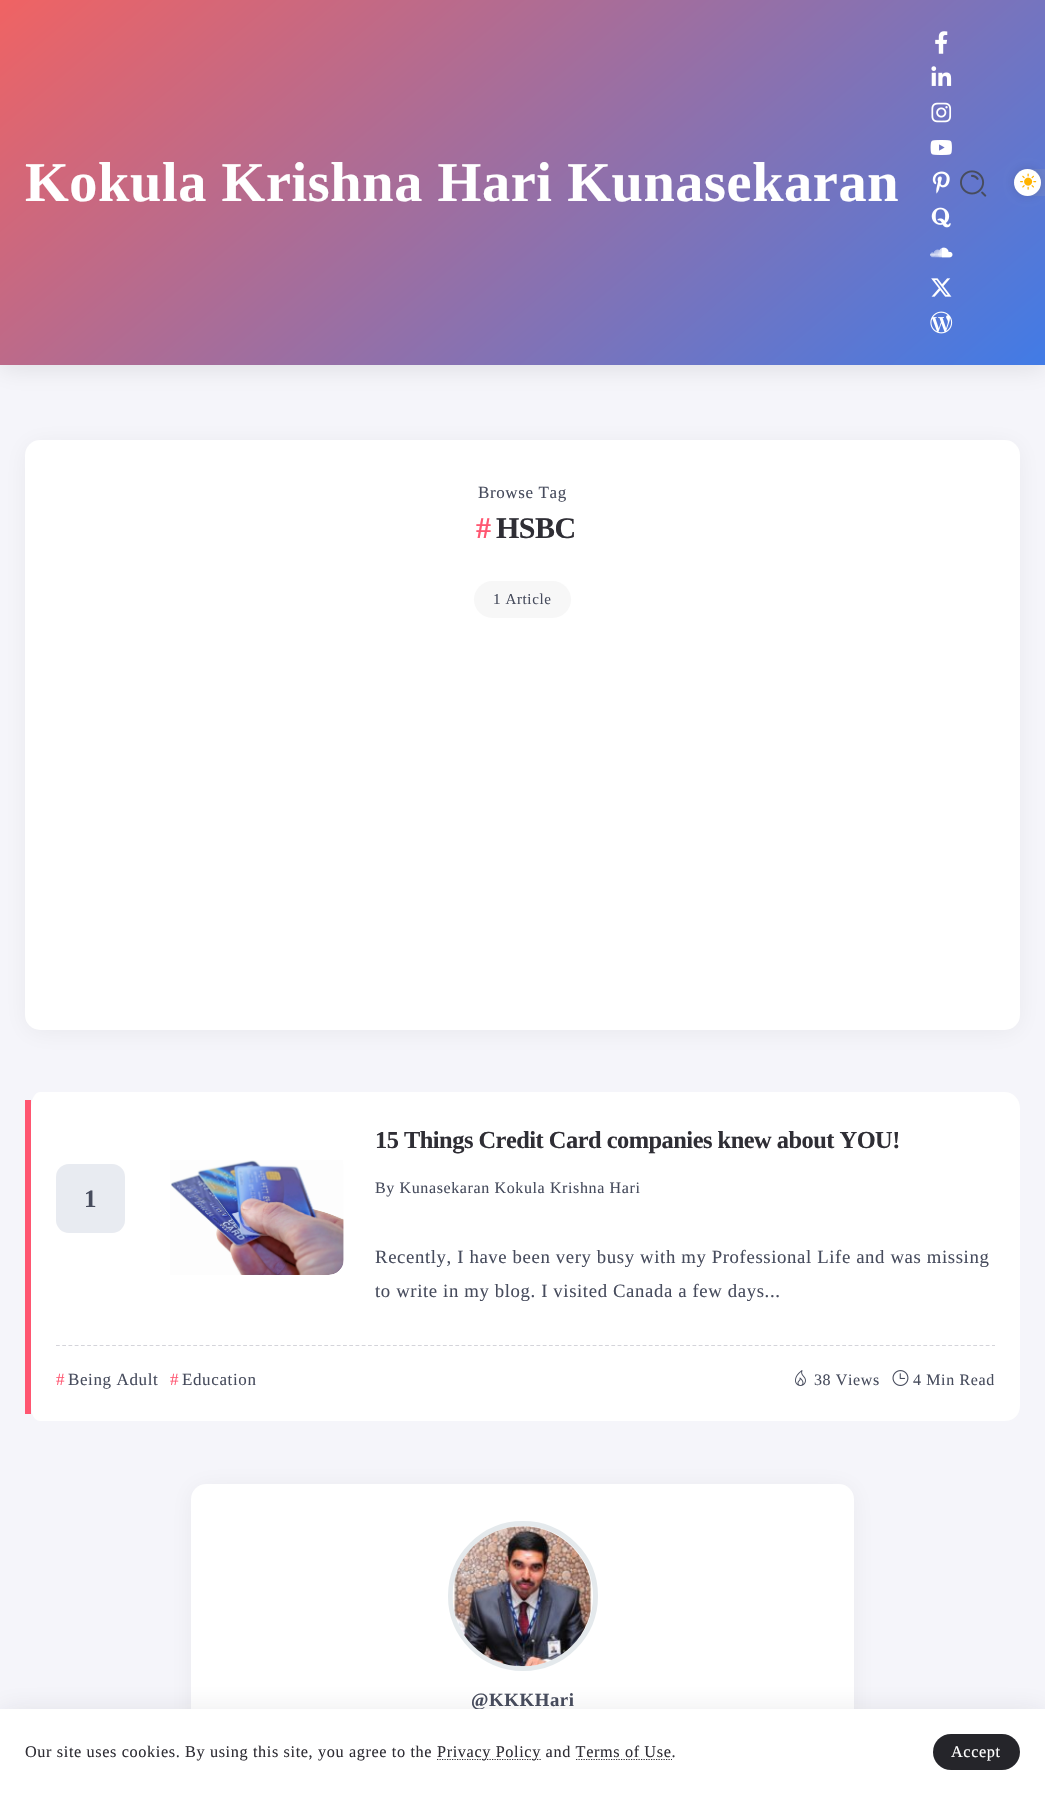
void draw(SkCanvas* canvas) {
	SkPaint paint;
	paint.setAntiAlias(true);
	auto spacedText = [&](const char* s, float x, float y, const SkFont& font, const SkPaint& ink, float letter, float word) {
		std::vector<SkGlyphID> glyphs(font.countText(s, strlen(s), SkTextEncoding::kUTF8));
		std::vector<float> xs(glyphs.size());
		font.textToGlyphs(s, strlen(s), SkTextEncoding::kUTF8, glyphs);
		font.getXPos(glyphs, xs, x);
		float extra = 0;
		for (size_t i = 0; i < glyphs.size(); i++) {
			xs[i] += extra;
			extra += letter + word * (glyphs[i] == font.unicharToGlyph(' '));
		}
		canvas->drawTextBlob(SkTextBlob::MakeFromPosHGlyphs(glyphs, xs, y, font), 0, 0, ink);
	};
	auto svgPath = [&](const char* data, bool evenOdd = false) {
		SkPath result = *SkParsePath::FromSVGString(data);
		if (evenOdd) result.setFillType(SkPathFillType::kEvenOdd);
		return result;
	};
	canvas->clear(0xfff5f5fa);
	paint.setColor(0x1a0e0e13);
	paint.setMaskFilter(SkMaskFilter::MakeBlur(kNormal_SkBlurStyle, 12.5));
	canvas->drawRect(SkRect::MakeXYWH(0, 3, 1045, 365), paint);
	paint.setMaskFilter(nullptr);
	{
		const SkColor colors[] = {0xfff06363, 0xff417be6};
		const float stops[] = {0, 1};
		const SkPoint ends[] = {{217, -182}, {828, 547}};
		paint.setShader(SkGradientShader::MakeLinear(ends, colors, stops, 2, SkTileMode::kClamp));
		paint.setAlpha(255);
	}
	canvas->drawRect(SkRect::MakeXYWH(0, 0, 1045, 365), paint);
	SkFont f1(fontMgr->matchFamilyStyle("Liberation Serif", SkFontStyle::Bold()), 56.25);
	f1.setSubpixel(true);
	paint.setShader(nullptr);
	paint.setColor(0xffffffff);
	spacedText("Kokula Krishna Hari Kunasekaran", 25, 201, f1, paint, 0.62, 0);
	canvas->drawImageRect(SkImages::DeferredFromEncodedData(SkData::MakeFromFileName("img1.png")), SkRect::MakeXYWH(935, 31, 13, 23), SkSamplingOptions());
	canvas->drawImageRect(SkImages::DeferredFromEncodedData(SkData::MakeFromFileName("img2.png")), SkRect::MakeXYWH(931, 66, 21, 20), SkSamplingOptions());
	canvas->drawImageRect(SkImages::DeferredFromEncodedData(SkData::MakeFromFileName("img3.png")), SkRect::MakeXYWH(931, 102, 21, 21), SkSamplingOptions());
	canvas->drawImageRect(SkImages::DeferredFromEncodedData(SkData::MakeFromFileName("img4.png")), SkRect::MakeXYWH(930, 140, 22, 15), SkSamplingOptions());
	canvas->drawImageRect(SkImages::DeferredFromEncodedData(SkData::MakeFromFileName("img5.png")), SkRect::MakeXYWH(932, 171, 18, 23), SkSamplingOptions());
	canvas->drawImageRect(SkImages::DeferredFromEncodedData(SkData::MakeFromFileName("img6.png")), SkRect::MakeXYWH(931, 207, 20, 21), SkSamplingOptions());
	canvas->drawImageRect(SkImages::DeferredFromEncodedData(SkData::MakeFromFileName("img7.png")), SkRect::MakeXYWH(930, 247, 23, 11), SkSamplingOptions());
	canvas->drawImageRect(SkImages::DeferredFromEncodedData(SkData::MakeFromFileName("img8.png")), SkRect::MakeXYWH(931, 278, 21, 19), SkSamplingOptions());
	canvas->drawImageRect(SkImages::DeferredFromEncodedData(SkData::MakeFromFileName("img9.png")), SkRect::MakeXYWH(930, 311, 23, 23), SkSamplingOptions());
	canvas->drawImageRect(SkImages::DeferredFromEncodedData(SkData::MakeFromFileName("img10.png")), SkRect::MakeXYWH(960, 170, 27, 27), SkSamplingOptions());
	paint.setColor(0x2e9fa8b5);
	canvas->drawRoundRect(SkRect::MakeXYWH(1014, 169, 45, 27), 13.5, 13.5, paint);
	paint.setColor(0x302f3139);
	paint.setMaskFilter(SkMaskFilter::MakeBlur(kNormal_SkBlurStyle, 5));
	canvas->drawRoundRect(SkRect::MakeXYWH(1014, 169, 27, 27), 13.5, 13.5, paint);
	paint.setMaskFilter(nullptr);
	paint.setColor(0xffffffff);
	canvas->drawCircle(1027.5, 182.5, 13.5, paint);
	canvas->drawImageRect(SkImages::DeferredFromEncodedData(SkData::MakeFromFileName("img11.png")), SkRect::MakeXYWH(1020, 173, 17, 17), SkSamplingOptions());
	paint.setColor(0x0d0e0e13);
	paint.setMaskFilter(SkMaskFilter::MakeBlur(kNormal_SkBlurStyle, 12.5));
	canvas->drawRoundRect(SkRect::MakeXYWH(25, 443, 995, 590), 15, 15, paint);
	paint.setMaskFilter(nullptr);
	paint.setColor(0xffffffff);
	canvas->drawRoundRect(SkRect::MakeXYWH(25, 440, 995, 590), 15, 15, paint);
	SkFont f2(fontMgr->matchFamilyStyle("Liberation Serif", SkFontStyle::Normal()), 17);
	f2.setSubpixel(true);
	paint.setColor(0xff474c5d);
	spacedText("Browse Tag", 478, 498, f2, paint, 0.62, 0);
	SkFont f3(fontMgr->matchFamilyStyle("Liberation Serif", SkFontStyle::Bold()), 30);
	f3.setSubpixel(true);
	paint.setColor(0xffff5671);
	spacedText("#", 476, 538, f3, paint, -0.5, 0);
	paint.setColor(0xff2f2e35);
	spacedText("HSBC", 496, 538, f3, paint, -0.5, 0);
	paint.setColor(0xfff7f7f7);
	canvas->drawRoundRect(SkRect::MakeXYWH(474, 581, 97, 37), 18.5, 18.5, paint);
	SkFont f4(fontMgr->matchFamilyStyle("Liberation Serif", SkFontStyle::Normal()), 15);
	f4.setSubpixel(true);
	paint.setColor(0xff474c5d);
	spacedText("1 Article", 493, 604, f4, paint, 0.62, 0);
	paint.setColor(0xffffffff);
	canvas->drawPath(svgPath("M40 1092H1005C1013 1092 1020 1099 1020 1108V1406C1020 1415 1013 1421 1005 1421H40C35 1421 31 1415 31 1406V1108C31 1099 35 1092 40 1092Z"), paint);
	paint.setColor(0xffff5671);
	canvas->drawRect(SkRect::MakeXYWH(25, 1100, 6, 314), paint);
	paint.setColor(0xffe8ebf1);
	canvas->drawRoundRect(SkRect::MakeXYWH(56, 1164, 69, 69), 13, 13, paint);
	SkFont f5(fontMgr->matchFamilyStyle("Liberation Serif", SkFontStyle::Bold()), 25);
	f5.setSubpixel(true);
	paint.setColor(0xff474c5d);
	spacedText("1", 84, 1207, f5, paint, 0.62, 0);
	canvas->drawImageRect(SkImages::DeferredFromEncodedData(SkData::MakeFromFileName("img12.png")), SkRect::MakeXYWH(170, 1160, 174, 115), SkSamplingOptions());
	SkFont f6(fontMgr->matchFamilyStyle("Liberation Serif", SkFontStyle::Bold()), 24.4);
	f6.setSubpixel(true);
	paint.setColor(0xff2f2e35);
	spacedText("15 Things Credit Card companies knew about YOU!", 375, 1148, f6, paint, -0.5, 0);
	SkFont f7(fontMgr->matchFamilyStyle("Liberation Serif", SkFontStyle::Normal()), 16);
	f7.setSubpixel(true);
	paint.setColor(0xff474c5d);
	spacedText("By Kunasekaran Kokula Krishna Hari", 375, 1193, f7, paint, 0.62, 0);
	SkFont f8(fontMgr->matchFamilyStyle("Liberation Serif", SkFontStyle::Normal()), 18.75);
	f8.setSubpixel(true);
	spacedText("Recently, I have been very busy with my Professional Life and was missing", 375, 1263, f8, paint, 0.62, 0);
	spacedText("to write in my blog. I visited Canada a few days...", 375, 1297, f8, paint, 0.62, 0);
	paint.setStroke(true);
	paint.setStrokeWidth(1.2);
	paint.setColor(0xffd4d4da);
	paint.setPathEffect(SkDashPathEffect::Make({{3.75f, 2.49f}}, 0));
	canvas->drawPath(svgPath("M56 1345.5H995"), paint);
	paint.setPathEffect(nullptr);
	paint.setStroke(false);
	paint.setColor(0xffff5671);
	spacedText("#", 56, 1385, f2, paint, 0.62, 0);
	paint.setColor(0xff474c5d);
	spacedText("Being Adult", 68, 1385, f2, paint, 0.62, 0);
	paint.setColor(0xffff5671);
	spacedText("#", 170, 1385, f2, paint, 0.62, 0);
	paint.setColor(0xff474c5d);
	spacedText("Education", 182, 1385, f2, paint, 0.62, 0);
	canvas->drawImageRect(SkImages::DeferredFromEncodedData(SkData::MakeFromFileName("img13.png")), SkRect::MakeXYWH(795, 1370, 11, 16), SkSamplingOptions());
	spacedText("38 Views", 814, 1385, f7, paint, 0.62, 0);
	canvas->drawImageRect(SkImages::DeferredFromEncodedData(SkData::MakeFromFileName("img14.png")), SkRect::MakeXYWH(892, 1370, 17, 16), SkSamplingOptions());
	spacedText("4 Min Read", 913, 1385, f7, paint, 0.62, 0);
	paint.setColor(0x0d0e0e13);
	paint.setMaskFilter(SkMaskFilter::MakeBlur(kNormal_SkBlurStyle, 12.5));
	canvas->drawRoundRect(SkRect::MakeXYWH(191, 1486, 663, 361), 15, 15, paint);
	paint.setMaskFilter(nullptr);
	paint.setColor(0xffffffff);
	canvas->drawRoundRect(SkRect::MakeXYWH(191, 1484, 663, 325), 15, 15, paint);
	paint.setStroke(true);
	paint.setStrokeWidth(5);
	paint.setColor(0xffe4e9ec);
	canvas->drawCircle(523, 1596, 72.5, paint);
	canvas->drawImageRect(SkImages::DeferredFromEncodedData(SkData::MakeFromFileName("img15.png")), SkRect::MakeXYWH(452, 1526, 140, 141), SkSamplingOptions());
	SkFont f9(fontMgr->matchFamilyStyle("Liberation Serif", SkFontStyle::Bold()), 18.75);
	f9.setSubpixel(true);
	paint.setStroke(false);
	paint.setColor(0xff474c5d);
	spacedText("@KKKHari", 471, 1706, f9, paint, 0.62, 0);
	paint.setColor(0x1f25252e);
	paint.setMaskFilter(SkMaskFilter::MakeBlur(kNormal_SkBlurStyle, 15.5));
	canvas->drawRect(SkRect::MakeXYWH(0, 1714, 1045, 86), paint);
	paint.setMaskFilter(nullptr);
	paint.setColor(0xffffffff);
	canvas->drawRect(SkRect::MakeXYWH(0, 1709, 1045, 85), paint);
	SkFont f10(fontMgr->matchFamilyStyle("Liberation Serif", SkFontStyle::Normal()), 16.25);
	f10.setSubpixel(true);
	paint.setColor(0xff2f2e35);
	spacedText("Our site uses cookies. By using this site, you agree to the", 25, 1757, f10, paint, 0.62, 0);
	paint.setStroke(true);
	paint.setStrokeWidth(1.2);
	paint.setPathEffect(SkDashPathEffect::Make({{1.25f, 1.25f}}, 0));
	canvas->drawPath(svgPath("M437 1759.5H541"), paint);
	paint.setPathEffect(nullptr);
	paint.setStroke(false);
	spacedText("Privacy Policy and Terms of Use.", 437, 1757, f10, paint, 0.62, 0);
	paint.setStroke(true);
	paint.setPathEffect(SkDashPathEffect::Make({{1.25f, 1.25f}}, 0));
	canvas->drawPath(svgPath("M576 1759.5H672"), paint);
	paint.setPathEffect(nullptr);
	paint.setStroke(false);
	paint.setColor(0xff25252a);
	canvas->drawRoundRect(SkRect::MakeXYWH(933, 1734, 87, 36), 18, 18, paint);
	paint.setColor(0xffffffff);
	spacedText("Accept", 951, 1757, f10, paint, 0.62, 0);
}
